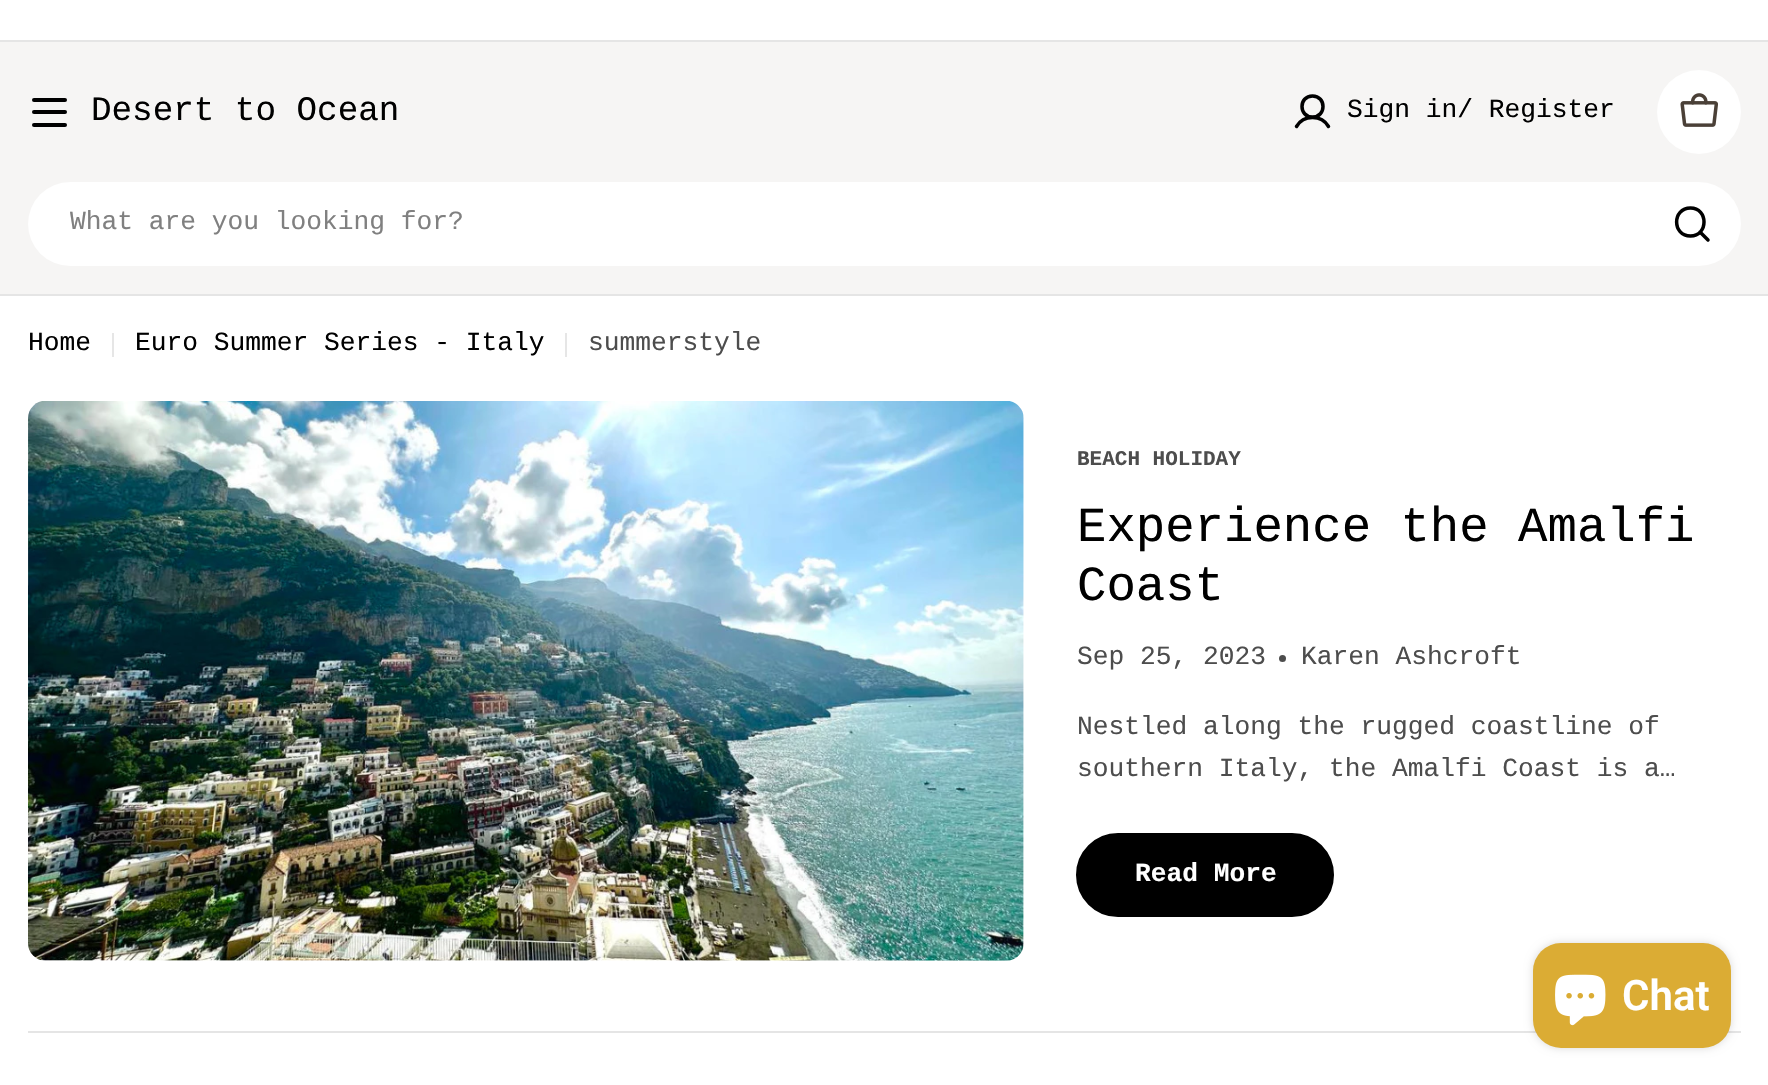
void draw(SkCanvas* canvas) {
	SkPaint paint;
	paint.setAntiAlias(true);
	auto svgPath = [&](const char* data, bool evenOdd = false) {
		SkPath result = *SkParsePath::FromSVGString(data);
		if (evenOdd) result.setFillType(SkPathFillType::kEvenOdd);
		return result;
	};
	canvas->clear(0xffffffff);
	paint.setColor(0xffe5e5e5);
	canvas->drawRect(SkRect::MakeXYWH(0, 40, 1768, 2), paint);
	paint.setColor(0xfff6f5f4);
	canvas->drawRect(SkRect::MakeXYWH(0, 42, 1768, 252), paint);
	paint.setColor(0xff000000);
	canvas->drawRoundRect(SkRect::MakeXYWH(32, 110, 35, 4), 2, 2, paint);
	canvas->drawRoundRect(SkRect::MakeXYWH(32, 98, 35, 4), 2, 2, paint);
	canvas->drawRoundRect(SkRect::MakeXYWH(32, 123, 35, 4), 2, 2, paint);
	SkFont f1(fontMgr->matchFamilyStyle("Liberation Mono", SkFontStyle::Normal()), 34.25);
	f1.setSubpixel(true);
	canvas->drawString("Desert to Ocean", 91, 120, f1, paint);
	paint.setStroke(true);
	paint.setStrokeWidth(3.5);
	paint.setStrokeCap(SkPaint::kRound_Cap);
	paint.setStrokeJoin(SkPaint::kRound_Join);
	canvas->drawPath(svgPath("M1312.5 117C1326.5 117 1326.5 96 1312.5 96C1298.5 96 1298.5 117 1312.5 117ZM1296.5 126.5C1303.5 114.5 1321.5 114.5 1328.5 126.5"), paint);
	SkFont f2(fontMgr->matchFamilyStyle("Liberation Mono", SkFontStyle::Normal()), 26.25);
	f2.setSubpixel(true);
	paint.setStroke(false);
	canvas->drawString("Sign in/ Register", 1347, 117, f2, paint);
	paint.setColor(0xffffffff);
	canvas->drawCircle(1699, 112, 42, paint);
	canvas->drawImageRect(SkImages::DeferredFromEncodedData(SkData::MakeFromFileName("img1.png")), SkRect::MakeXYWH(1680, 93, 38, 34), SkSamplingOptions());
	canvas->drawRoundRect(SkRect::MakeXYWH(28, 182, 1713, 84), 42, 42, paint);
	paint.setColor(0xff808080);
	canvas->drawString("What are you looking for?", 70, 229, f2, paint);
	paint.setStroke(true);
	paint.setColor(0xff000000);
	canvas->drawPath(svgPath("M1690.5 236C1708.5 236 1708.5 208 1690.5 208C1672 208 1672 236 1690.5 236ZM1700 232L1708 240"), paint);
	paint.setStroke(false);
	paint.setColor(0xffe5e5e5);
	canvas->drawRect(SkRect::MakeXYWH(0, 294, 1768, 2), paint);
	paint.setColor(0xff000000);
	canvas->drawString("Home", 28, 350, f2, paint);
	paint.setColor(0xffe6e6e6);
	canvas->drawRect(SkRect::MakeXYWH(112, 333, 2, 24), paint);
	paint.setColor(0xff000000);
	canvas->drawString("Euro Summer Series - Italy", 135, 350, f2, paint);
	paint.setColor(0xffe6e6e6);
	canvas->drawRect(SkRect::MakeXYWH(565, 333, 2, 24), paint);
	paint.setColor(0xff4d4d4d);
	canvas->drawString("summerstyle", 588, 350, f2, paint);
	canvas->drawImageRect(SkImages::DeferredFromEncodedData(SkData::MakeFromFileName("img2.png")), SkRect::MakeXYWH(28, 401, 996, 560), SkSamplingOptions());
	SkFont f3(fontMgr->matchFamilyStyle("Liberation Mono", SkFontStyle::Bold()), 21);
	f3.setSubpixel(true);
	canvas->drawString("BEACH HOLIDAY", 1077, 465, f3, paint);
	SkFont f4(fontMgr->matchFamilyStyle("Liberation Mono", SkFontStyle::Normal()), 49);
	f4.setSubpixel(true);
	paint.setColor(0xff000000);
	canvas->drawString("Experience the Amalfi", 1077, 541, f4, paint);
	canvas->drawString("Coast", 1077, 600, f4, paint);
	paint.setColor(0xff4d4d4d);
	canvas->drawString("Sep 25, 2023", 1077, 664, f2, paint);
	canvas->drawCircle(1282.5, 658.5, 3.5, paint);
	canvas->drawString("Karen Ashcroft", 1301, 664, f2, paint);
	canvas->drawString("Nestled along the rugged coastline of", 1077, 734, f2, paint);
	canvas->drawString("southern Italy, the Amalfi Coast is a…", 1077, 776, f2, paint);
	paint.setColor(0xff000000);
	canvas->drawRoundRect(SkRect::MakeXYWH(1077, 834, 256, 82), 41, 41, paint);
	paint.setStroke(true);
	paint.setStrokeWidth(2);
	paint.setStrokeCap(SkPaint::kButt_Cap);
	paint.setStrokeJoin(SkPaint::kMiter_Join);
	canvas->drawRoundRect(SkRect::MakeXYWH(1077, 834, 256, 82), 41, 41, paint);
	SkFont f5(fontMgr->matchFamilyStyle("Liberation Mono", SkFontStyle::Bold()), 26.25);
	f5.setSubpixel(true);
	paint.setStroke(false);
	paint.setColor(0xffffffff);
	canvas->drawString("Read More", 1135, 881, f5, paint);
	paint.setColor(0xffe5e5e5);
	canvas->drawRect(SkRect::MakeXYWH(28, 1031, 1713, 2), paint);
	paint.setColor(0x26000000);
	paint.setMaskFilter(SkMaskFilter::MakeBlur(kNormal_SkBlurStyle, 4.5));
	canvas->drawRoundRect(SkRect::MakeXYWH(1533, 943, 198, 105), 28, 28, paint);
	paint.setMaskFilter(nullptr);
	paint.setColor(0xffdbac34);
	canvas->drawRoundRect(SkRect::MakeXYWH(1533, 943, 198, 105), 28, 28, paint);
	canvas->drawImageRect(SkImages::DeferredFromEncodedData(SkData::MakeFromFileName("img3.png")), SkRect::MakeXYWH(1555, 974, 51, 52), SkSamplingOptions());
	SkFont f6(fontMgr->matchFamilyStyle("Roboto", SkFontStyle(600, SkFontStyle::kNormal_Width, SkFontStyle::kUpright_Slant)), 42);
	f6.setSubpixel(true);
	paint.setColor(0xffffffff);
	canvas->drawString("Chat", 1622, 1010, f6, paint);
}
